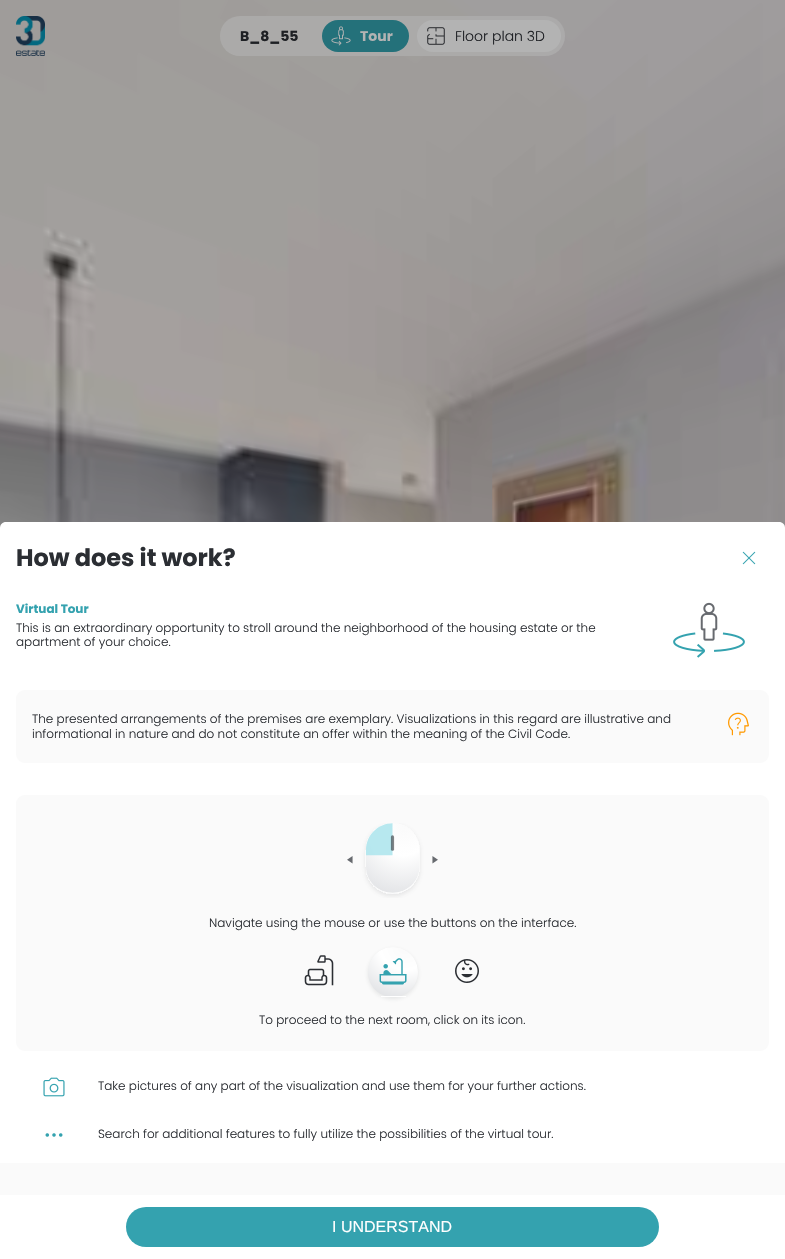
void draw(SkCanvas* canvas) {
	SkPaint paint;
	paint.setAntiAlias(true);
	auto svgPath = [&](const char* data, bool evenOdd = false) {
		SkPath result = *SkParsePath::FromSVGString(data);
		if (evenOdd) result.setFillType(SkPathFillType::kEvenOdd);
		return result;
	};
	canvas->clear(0xffffffff);
	canvas->drawImageRect(SkImages::DeferredFromEncodedData(SkData::MakeFromFileName("img1.png")), SkRect::MakeXYWH(0, 0, 785, 528), SkSamplingOptions());
	canvas->drawImageRect(SkImages::DeferredFromEncodedData(SkData::MakeFromFileName("img2.png")), SkRect::MakeXYWH(16, 16, 29, 40), SkSamplingOptions());
	paint.setColor(0x99b3b3b3);
	canvas->drawRoundRect(SkRect::MakeXYWH(220, 16, 345, 40), 20, 20, paint);
	SkFont f1(fontMgr->matchFamilyStyle("Poppins", SkFontStyle::Bold()), 14);
	f1.setSubpixel(true);
	paint.setColor(0xff1e2024);
	canvas->drawString("B_8_55", 240, 41, f1, paint);
	paint.setColor(0xff24717a);
	canvas->drawRoundRect(SkRect::MakeXYWH(322, 20, 87, 32), 16, 16, paint);
	canvas->drawImageRect(SkImages::DeferredFromEncodedData(SkData::MakeFromFileName("img3.png")), SkRect::MakeXYWH(331, 26, 20, 20), SkSamplingOptions());
	paint.setColor(0xffb3b3b3);
	canvas->drawString("Tour", 360, 41, f1, paint);
	canvas->drawRoundRect(SkRect::MakeXYWH(417, 20, 144, 32), 16, 16, paint);
	canvas->drawImageRect(SkImages::DeferredFromEncodedData(SkData::MakeFromFileName("img4.png")), SkRect::MakeXYWH(427, 27, 18, 18), SkSamplingOptions());
	SkFont f2(fontMgr->matchFamilyStyle("Poppins", SkFontStyle(300, SkFontStyle::kNormal_Width, SkFontStyle::kUpright_Slant)), 14);
	f2.setSubpixel(true);
	paint.setColor(0xff1e2024);
	canvas->drawString("Floor plan 3D", 455, 41, f2, paint);
	paint.setColor(0xffffffff);
	canvas->drawPath(svgPath("M6 522H779C782.5 522 785 524.5 785 528V594H0V528C0 524.5 2.5 522 6 522Z"), paint);
	SkFont f3(fontMgr->matchFamilyStyle("Poppins", SkFontStyle::Bold()), 24);
	f3.setSubpixel(true);
	paint.setColor(0xff2b2e33);
	canvas->drawString("How does it work?", 16, 566, f3, paint);
	canvas->drawImageRect(SkImages::DeferredFromEncodedData(SkData::MakeFromFileName("img5.png")), SkRect::MakeXYWH(742, 551, 14, 14), SkSamplingOptions());
	SkFont f4(fontMgr->matchFamilyStyle("Poppins", SkFontStyle::Bold()), 12);
	f4.setSubpixel(true);
	paint.setColor(0xff34a2af);
	canvas->drawString("Virtual Tour", 16, 613, f4, paint);
	SkFont f5(fontMgr->matchFamilyStyle("Poppins", SkFontStyle(300, SkFontStyle::kNormal_Width, SkFontStyle::kUpright_Slant)), 12);
	f5.setSubpixel(true);
	paint.setColor(0xff2b2e33);
	canvas->drawString("This is an extraordinary opportunity to stroll around the neighborhood of the housing estate or the", 16, 632, f5, paint);
	canvas->drawString("apartment of your choice.", 16, 646, f5, paint);
	canvas->drawImageRect(SkImages::DeferredFromEncodedData(SkData::MakeFromFileName("img6.png")), SkRect::MakeXYWH(673, 602, 72, 56), SkSamplingOptions());
	paint.setColor(0xfffafafa);
	canvas->drawRoundRect(SkRect::MakeXYWH(16, 690, 753, 73), 9, 9, paint);
	paint.setColor(0xff2b2e33);
	canvas->drawString("The presented arrangements of the premises are exemplary. Visualizations in this regard are illustrative and", 32, 723, f5, paint);
	canvas->drawString("informational in nature and do not constitute an offer within the meaning of the Civil Code.", 32, 738, f5, paint);
	canvas->drawImageRect(SkImages::DeferredFromEncodedData(SkData::MakeFromFileName("img7.png")), SkRect::MakeXYWH(728, 712, 21, 24), SkSamplingOptions());
	paint.setColor(0xfffafafa);
	canvas->drawRoundRect(SkRect::MakeXYWH(16, 795, 753, 256), 9, 9, paint);
	canvas->drawImageRect(SkImages::DeferredFromEncodedData(SkData::MakeFromFileName("img8.png")), SkRect::MakeXYWH(347, 823, 91, 75), SkSamplingOptions());
	paint.setColor(0xff2b2e33);
	canvas->drawString("Navigate using the mouse or use the buttons on the interface.", 209, 927, f5, paint);
	canvas->drawImageRect(SkImages::DeferredFromEncodedData(SkData::MakeFromFileName("img9.png")), SkRect::MakeXYWH(304, 955, 30, 31), SkSamplingOptions());
	paint.setColor(0x1a2b2e33);
	paint.setMaskFilter(SkMaskFilter::MakeBlur(kNormal_SkBlurStyle, 2));
	canvas->drawRoundRect(SkRect::MakeXYWH(368, 949, 50, 50), 25, 25, paint);
	paint.setMaskFilter(nullptr);
	canvas->save();
	canvas->clipPath(svgPath("M393 947C407 947 418 958 418 972C418 986 407 997 393 997C379 997 368 986 368 972C368 958 379 947 393 947Z"), true);
	{
		const SkColor colors[] = {0xfffafafa, 0xffffffff, 0xffd3d5d9};
		const float stops[] = {0, 0.34, 1};
		SkMatrix m = SkMatrix::Translate(405, 947).preScale(75, 68);
		paint.setShader(SkGradientShader::MakeRadial({0, 0}, 1, colors, stops, 3, SkTileMode::kClamp, 0, &m));
		paint.setAlpha(255);
	}
	canvas->drawPath(svgPath("M393 947C407 947 418 958 418 972V996H368V972C368 958 379 947 393 947Z"), paint);
	canvas->restore();
	paint.setShader(nullptr);
	paint.setColor(0xffffffff);
	canvas->drawRect(SkRect::MakeXYWH(381, 996, 25, 1), paint);
	canvas->drawImageRect(SkImages::DeferredFromEncodedData(SkData::MakeFromFileName("img10.png")), SkRect::MakeXYWH(379, 958, 28, 27), SkSamplingOptions());
	canvas->drawImageRect(SkImages::DeferredFromEncodedData(SkData::MakeFromFileName("img11.png")), SkRect::MakeXYWH(455, 959, 24, 24), SkSamplingOptions());
	paint.setColor(0xff2b2e33);
	canvas->drawString("To proceed to the next room, click on its icon.", 259, 1024, f5, paint);
	canvas->drawImageRect(SkImages::DeferredFromEncodedData(SkData::MakeFromFileName("img12.png")), SkRect::MakeXYWH(43, 1077, 22, 20), SkSamplingOptions());
	canvas->drawString("Take pictures of any part of the visualization and use them for your further actions.", 98, 1090, f5, paint);
	canvas->drawImageRect(SkImages::DeferredFromEncodedData(SkData::MakeFromFileName("img13.png")), SkRect::MakeXYWH(45, 1133, 18, 4), SkSamplingOptions());
	canvas->drawString("Search for additional features to fully utilize the possibilities of the virtual tour.", 98, 1138, f5, paint);
	paint.setColor(0xfffafafa);
	canvas->drawRect(SkRect::MakeXYWH(0, 1163, 785, 32), paint);
	paint.setColor(0xff34a2af);
	canvas->drawRoundRect(SkRect::MakeXYWH(126, 1207, 533, 40), 20, 20, paint);
	SkFont f6(fontMgr->matchFamilyStyle("Liberation Sans", SkFontStyle::Normal()), 16);
	f6.setSubpixel(true);
	paint.setColor(0xffffffff);
	canvas->drawString("I UNDERSTAND", 332, 1232, f6, paint);
}
